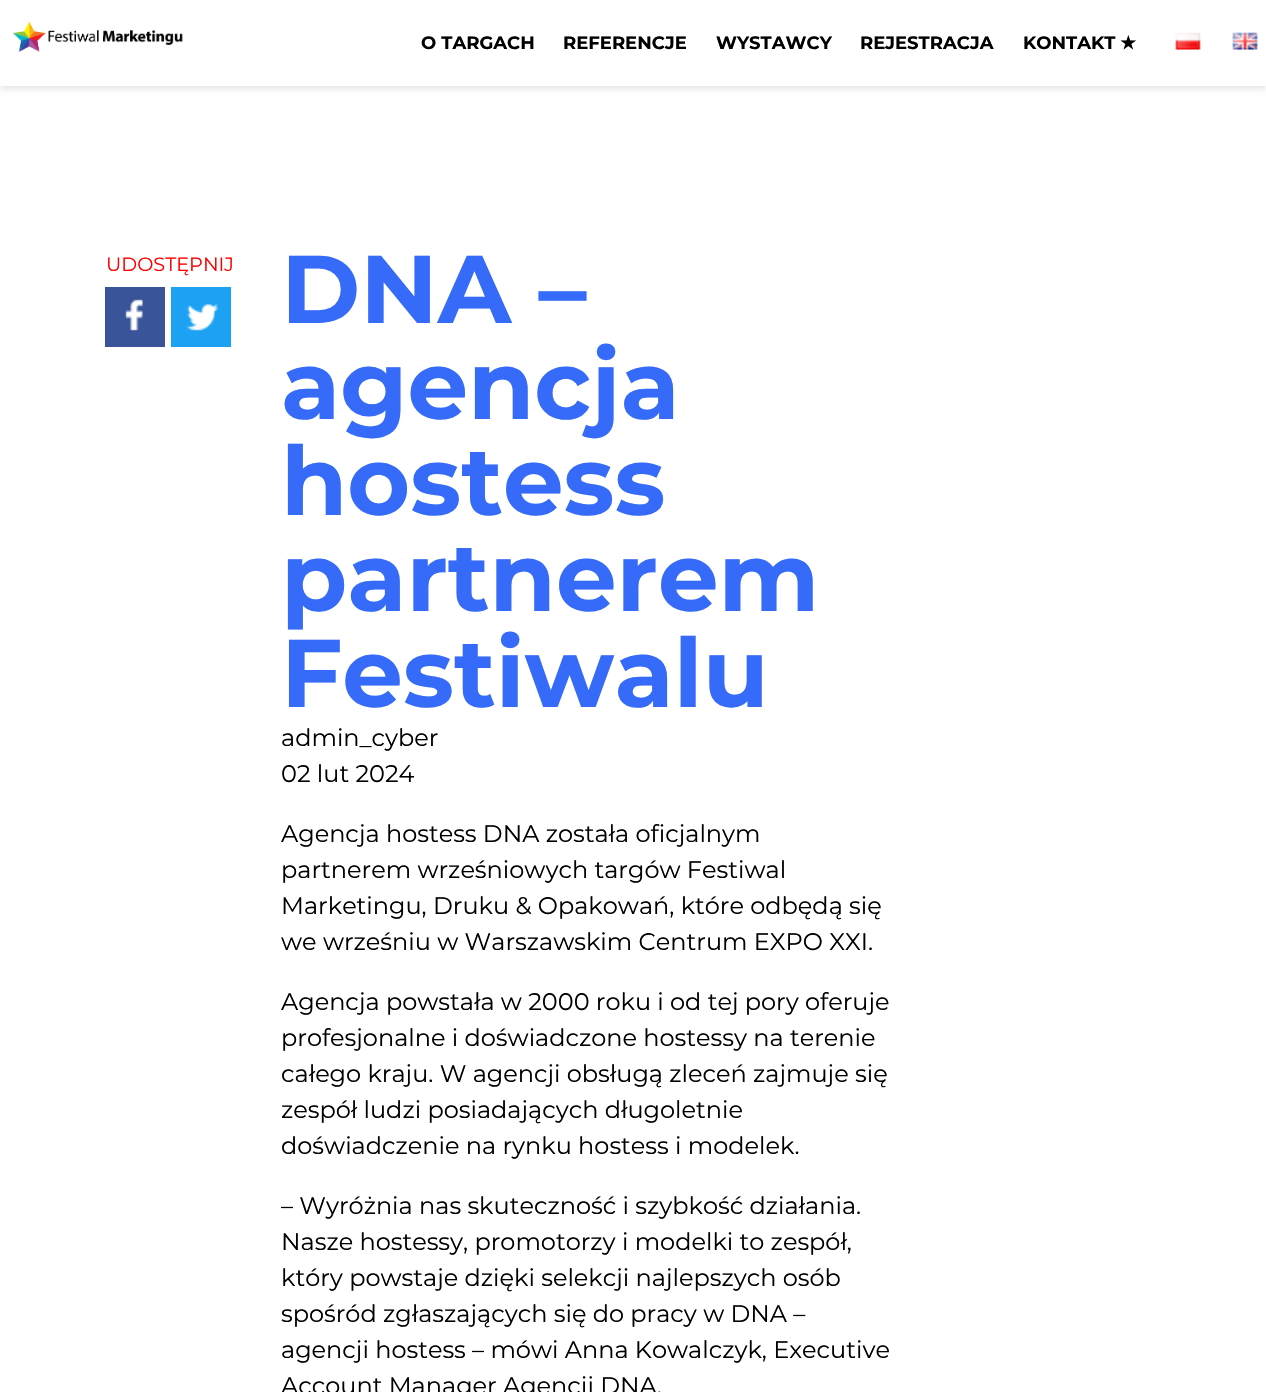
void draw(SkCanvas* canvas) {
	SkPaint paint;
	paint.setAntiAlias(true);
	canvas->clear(0xffffffff);
	paint.setColor(0x1a000000);
	paint.setMaskFilter(SkMaskFilter::MakeBlur(kNormal_SkBlurStyle, 3));
	canvas->drawRect(SkRect::MakeXYWH(0, 3, 1266, 86), paint);
	paint.setMaskFilter(nullptr);
	paint.setColor(0xffffffff);
	canvas->drawRect(SkRect::MakeXYWH(0, 0, 1266, 86), paint);
	canvas->drawImageRect(SkImages::DeferredFromEncodedData(SkData::MakeFromFileName("img1.png")), SkRect::MakeXYWH(12, 21, 171, 32), SkSamplingOptions());
	SkFont f1(fontMgr->matchFamilyStyle("Montserrat", SkFontStyle::Bold()), 18);
	f1.setSubpixel(true);
	paint.setColor(0xff000000);
	canvas->drawString("O TARGACH", 421, 49, f1, paint);
	canvas->drawString("REFERENCJE", 563, 49, f1, paint);
	canvas->drawString("WYSTAWCY", 716, 49, f1, paint);
	canvas->drawString("REJESTRACJA", 860, 49, f1, paint);
	canvas->drawString("KONTAKT", 1023, 49, f1, paint);
	SkFont f2(fontMgr->matchFamilyStyle("DejaVu Sans", SkFontStyle::Bold()), 18);
	f2.setSubpixel(true);
	canvas->drawString("★", 1120, 49, f2, paint);
	canvas->drawImageRect(SkImages::DeferredFromEncodedData(SkData::MakeFromFileName("img2.png")), SkRect::MakeXYWH(1175, 32, 26, 18), SkSamplingOptions());
	canvas->drawImageRect(SkImages::DeferredFromEncodedData(SkData::MakeFromFileName("img3.png")), SkRect::MakeXYWH(1232, 32, 26, 18), SkSamplingOptions());
	SkFont f3(fontMgr->matchFamilyStyle("Montserrat", SkFontStyle::Normal()), 19.25);
	f3.setSubpixel(true);
	paint.setColor(0xffff0000);
	canvas->drawString("UDOSTĘPNIJ", 106, 271, f3, paint);
	paint.setColor(0xff395498);
	canvas->drawRect(SkRect::MakeXYWH(105, 287, 60, 60), paint);
	canvas->drawImageRect(SkImages::DeferredFromEncodedData(SkData::MakeFromFileName("img4.png")), SkRect::MakeXYWH(125, 299, 18, 32), SkSamplingOptions());
	paint.setColor(0xff1da1f2);
	canvas->drawRect(SkRect::MakeXYWH(171, 287, 60, 60), paint);
	canvas->drawImageRect(SkImages::DeferredFromEncodedData(SkData::MakeFromFileName("img5.png")), SkRect::MakeXYWH(187, 304, 31, 27), SkSamplingOptions());
	SkFont f4(fontMgr->matchFamilyStyle("Montserrat", SkFontStyle::Bold()), 96);
	f4.setSubpixel(true);
	paint.setColor(0xff356bf8);
	canvas->drawString("DNA –", 281, 323, f4, paint);
	canvas->drawString("agencja", 281, 419, f4, paint);
	canvas->drawString("hostess", 281, 515, f4, paint);
	canvas->drawString("partnerem", 281, 611, f4, paint);
	canvas->drawString("Festiwalu", 281, 707, f4, paint);
	SkFont f5(fontMgr->matchFamilyStyle("Montserrat", SkFontStyle::Normal()), 24);
	f5.setSubpixel(true);
	paint.setColor(0xff000000);
	canvas->drawString("admin_cyber", 281, 746, f5, paint);
	canvas->drawString("02 lut 2024", 281, 782, f5, paint);
	canvas->drawString("Agencja hostess DNA została oficjalnym", 281, 842, f5, paint);
	canvas->drawString("partnerem wrześniowych targów Festiwal", 281, 878, f5, paint);
	canvas->drawString("Marketingu, Druku & Opakowań, które odbędą się", 281, 914, f5, paint);
	canvas->drawString("we wrześniu w Warszawskim Centrum EXPO XXI.", 281, 950, f5, paint);
	canvas->drawString("Agencja powstała w 2000 roku i od tej pory oferuje", 281, 1010, f5, paint);
	canvas->drawString("profesjonalne i doświadczone hostessy na terenie", 281, 1046, f5, paint);
	canvas->drawString("całego kraju. W agencji obsługą zleceń zajmuje się", 281, 1082, f5, paint);
	canvas->drawString("zespół ludzi posiadających długoletnie", 281, 1118, f5, paint);
	canvas->drawString("doświadczenie na rynku hostess i modelek.", 281, 1154, f5, paint);
	canvas->drawString("– Wyróżnia nas skuteczność i szybkość działania.", 281, 1214, f5, paint);
	canvas->drawString("Nasze hostessy, promotorzy i modelki to zespół,", 281, 1250, f5, paint);
	canvas->drawString("który powstaje dzięki selekcji najlepszych osób", 281, 1286, f5, paint);
	canvas->drawString("spośród zgłaszających się do pracy w DNA –", 281, 1322, f5, paint);
	canvas->drawString("agencji hostess – mówi Anna Kowalczyk, Executive", 281, 1358, f5, paint);
	canvas->drawString("Account Manager Agencji DNA.", 281, 1394, f5, paint);
}
